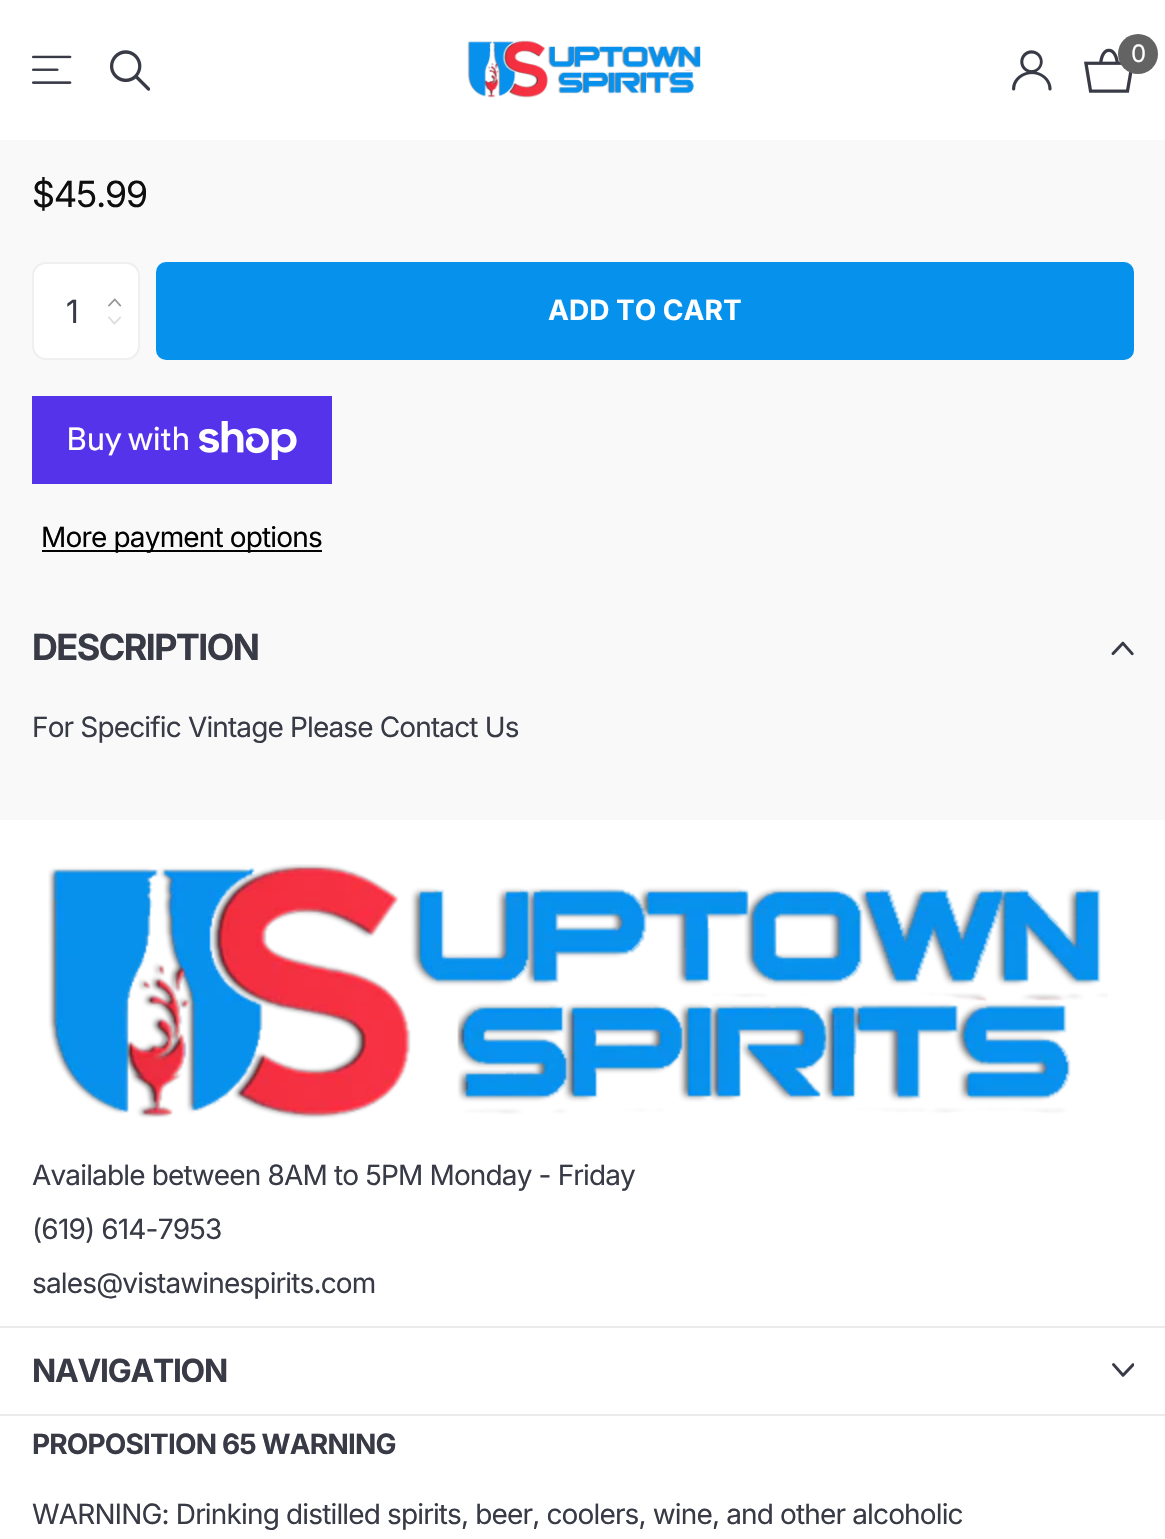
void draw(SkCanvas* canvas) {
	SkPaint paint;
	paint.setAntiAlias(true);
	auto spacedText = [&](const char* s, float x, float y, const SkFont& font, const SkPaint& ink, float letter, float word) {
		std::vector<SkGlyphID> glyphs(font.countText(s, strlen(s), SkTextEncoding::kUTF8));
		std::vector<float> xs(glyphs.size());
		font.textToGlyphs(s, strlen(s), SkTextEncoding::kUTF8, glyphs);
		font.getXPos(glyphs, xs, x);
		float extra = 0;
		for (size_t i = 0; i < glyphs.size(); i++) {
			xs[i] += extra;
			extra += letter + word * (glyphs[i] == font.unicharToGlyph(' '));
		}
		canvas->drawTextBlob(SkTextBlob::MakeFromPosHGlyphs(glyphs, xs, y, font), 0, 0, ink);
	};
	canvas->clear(0xfff9f9f9);
	paint.setColor(0xffffffff);
	canvas->drawRect(SkRect::MakeXYWH(0, 0, 1165, 140), paint);
	canvas->drawImageRect(SkImages::DeferredFromEncodedData(SkData::MakeFromFileName("img1.png")), SkRect::MakeXYWH(32, 55, 40, 29), SkSamplingOptions());
	canvas->drawImageRect(SkImages::DeferredFromEncodedData(SkData::MakeFromFileName("img2.png")), SkRect::MakeXYWH(110, 50, 41, 41), SkSamplingOptions());
	canvas->drawImageRect(SkImages::DeferredFromEncodedData(SkData::MakeFromFileName("img3.png")), SkRect::MakeXYWH(467, 40, 234, 58), SkSamplingOptions());
	canvas->drawImageRect(SkImages::DeferredFromEncodedData(SkData::MakeFromFileName("img4.png")), SkRect::MakeXYWH(1012, 50, 40, 41), SkSamplingOptions());
	canvas->drawImageRect(SkImages::DeferredFromEncodedData(SkData::MakeFromFileName("img5.png")), SkRect::MakeXYWH(1084, 48, 49, 45), SkSamplingOptions());
	paint.setColor(0xff636363);
	canvas->drawCircle(1138, 54, 20, paint);
	SkFont f1(fontMgr->matchFamilyStyle("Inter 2", SkFontStyle::Normal()), 24);
	f1.setSubpixel(true);
	paint.setColor(0xffffffff);
	spacedText("0", 1131, 62, f1, paint, -1, 0);
	SkFont f2(fontMgr->matchFamilyStyle("Inter", SkFontStyle::Normal()), 36);
	f2.setSubpixel(true);
	paint.setColor(0xff0e0e0e);
	spacedText("$45.99", 32, 207, f2, paint, -1, 0);
	paint.setColor(0xffffffff);
	canvas->drawRoundRect(SkRect::MakeXYWH(33, 263, 106, 96), 13, 13, paint);
	paint.setStroke(true);
	paint.setStrokeWidth(2);
	paint.setColor(0xffefefef);
	canvas->drawRoundRect(SkRect::MakeXYWH(33, 263, 106, 96), 13, 13, paint);
	SkFont f3(fontMgr->matchFamilyStyle("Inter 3", SkFontStyle::Normal()), 32);
	f3.setSubpixel(true);
	paint.setStroke(false);
	paint.setColor(0xff383a46);
	spacedText("1", 66, 323, f3, paint, -1, 0);
	canvas->drawImageRect(SkImages::DeferredFromEncodedData(SkData::MakeFromFileName("img6.png")), SkRect::MakeXYWH(108, 298, 14, 9), SkSamplingOptions());
	canvas->drawImageRect(SkImages::DeferredFromEncodedData(SkData::MakeFromFileName("img7.png")), SkRect::MakeXYWH(108, 316, 13, 9), SkSamplingOptions());
	paint.setColor(0xff0691ed);
	canvas->drawRoundRect(SkRect::MakeXYWH(156, 262, 978, 98), 10, 10, paint);
	SkFont f4(fontMgr->matchFamilyStyle("Inter 2", SkFontStyle::Bold()), 28);
	f4.setSubpixel(true);
	paint.setColor(0xffffffff);
	canvas->drawString("ADD TO CART", 548, 320, f4, paint);
	paint.setColor(0xff5433eb);
	canvas->drawRect(SkRect::MakeXYWH(32, 396, 300, 88), paint);
	SkFont f5(fontMgr->matchFamilyStyle("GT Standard", SkFontStyle::Normal()), 32);
	f5.setSubpixel(true);
	paint.setColor(0xffffffff);
	spacedText("Buy with", 66, 450, f5, paint, -0.85, 0);
	canvas->drawImageRect(SkImages::DeferredFromEncodedData(SkData::MakeFromFileName("img8.png")), SkRect::MakeXYWH(199, 421, 98, 39), SkSamplingOptions());
	paint.setColor(0xff020202);
	canvas->drawRect(SkRect::MakeXYWH(42, 550, 280, 2), paint);
	SkFont f6(fontMgr->matchFamilyStyle("Inter 2", SkFontStyle::Normal()), 28);
	f6.setSubpixel(true);
	spacedText("More payment options", 41, 547, f6, paint, -0.85, 0);
	SkFont f7(fontMgr->matchFamilyStyle("Inter", SkFontStyle::Bold()), 36);
	f7.setSubpixel(true);
	paint.setColor(0xff383a46);
	spacedText("DESCRIPTION", 32, 660, f7, paint, -1.5, 0);
	canvas->drawImageRect(SkImages::DeferredFromEncodedData(SkData::MakeFromFileName("img9.png")), SkRect::MakeXYWH(1111, 641, 23, 15), SkSamplingOptions());
	spacedText("For Specific Vintage Please Contact Us", 32, 737, f6, paint, -0.85, 0);
	paint.setColor(0xffffffff);
	canvas->drawRect(SkRect::MakeXYWH(0, 820, 1165, 719), paint);
	canvas->drawImageRect(SkImages::DeferredFromEncodedData(SkData::MakeFromFileName("img10.png")), SkRect::MakeXYWH(48, 864, 1060, 255), SkSamplingOptions());
	paint.setColor(0xff383a46);
	spacedText("Available between 8AM to 5PM Monday - Friday", 32, 1185, f6, paint, -0.85, 0);
	spacedText("(619) 614-7953", 32, 1239, f6, paint, -0.85, 0);
	spacedText("sales@vistawinespirits.com", 32, 1293, f6, paint, -0.85, 0);
	paint.setColor(0xffebebed);
	canvas->drawRect(SkRect::MakeXYWH(0, 1326, 1165, 2), paint);
	SkFont f8(fontMgr->matchFamilyStyle("Inter 3", SkFontStyle::Bold()), 32);
	f8.setSubpixel(true);
	paint.setColor(0xff383a46);
	spacedText("NAVIGATION", 32, 1382, f8, paint, -1.25, 0);
	canvas->drawImageRect(SkImages::DeferredFromEncodedData(SkData::MakeFromFileName("img11.png")), SkRect::MakeXYWH(1112, 1363, 22, 14), SkSamplingOptions());
	paint.setColor(0xffebebed);
	canvas->drawRect(SkRect::MakeXYWH(0, 1414, 1165, 2), paint);
	paint.setColor(0xff383a46);
	spacedText("PROPOSITION 65 WARNING", 32, 1454, f4, paint, -0.85, 0);
	spacedText("WARNING: Drinking distilled spirits, beer, coolers, wine, and other alcoholic", 32, 1524, f6, paint, -0.85, 0);
}
